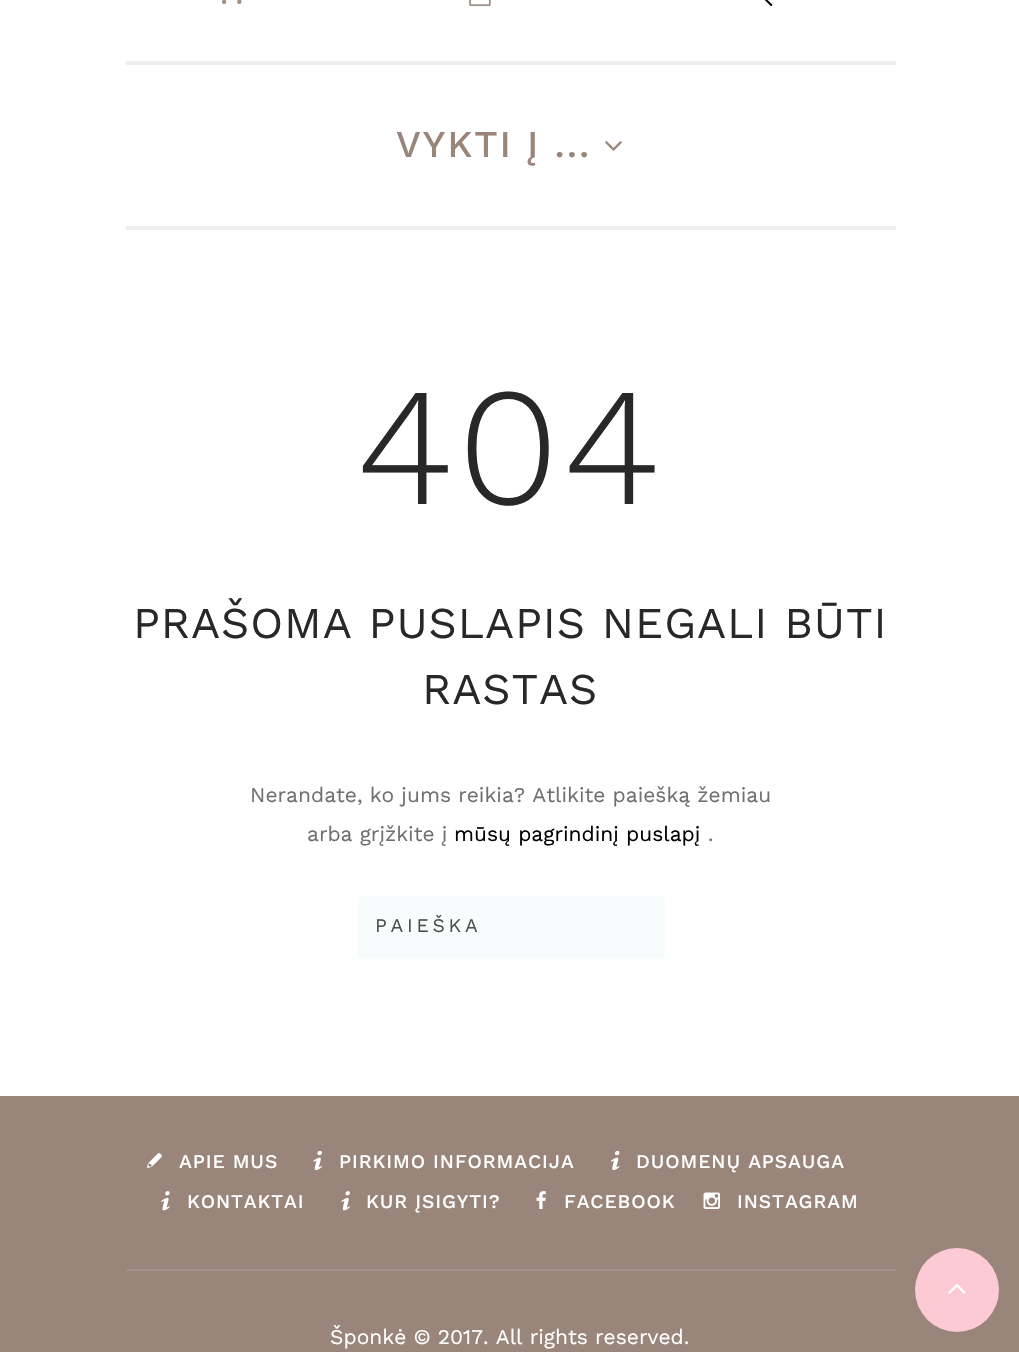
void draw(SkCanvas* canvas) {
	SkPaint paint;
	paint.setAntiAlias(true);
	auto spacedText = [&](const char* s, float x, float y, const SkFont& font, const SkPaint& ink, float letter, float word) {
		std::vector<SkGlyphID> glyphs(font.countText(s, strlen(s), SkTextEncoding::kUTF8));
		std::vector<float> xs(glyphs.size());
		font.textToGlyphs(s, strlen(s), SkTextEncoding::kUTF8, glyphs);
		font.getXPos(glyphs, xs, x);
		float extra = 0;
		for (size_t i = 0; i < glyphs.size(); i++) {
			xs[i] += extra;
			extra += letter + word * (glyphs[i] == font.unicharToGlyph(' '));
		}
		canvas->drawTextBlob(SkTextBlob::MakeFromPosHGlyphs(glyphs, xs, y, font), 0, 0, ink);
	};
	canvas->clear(0xffffffff);
	canvas->drawImageRect(SkImages::DeferredFromEncodedData(SkData::MakeFromFileName("img1.png")), SkRect::MakeXYWH(221, 0, 21, 4), SkSamplingOptions());
	canvas->drawImageRect(SkImages::DeferredFromEncodedData(SkData::MakeFromFileName("img2.png")), SkRect::MakeXYWH(469, 0, 22, 7), SkSamplingOptions());
	canvas->drawImageRect(SkImages::DeferredFromEncodedData(SkData::MakeFromFileName("img3.png")), SkRect::MakeXYWH(764, 0, 9, 7), SkSamplingOptions());
	paint.setColor(0xffeeeeee);
	canvas->drawRect(SkRect::MakeXYWH(126, 61, 770, 4), paint);
	canvas->drawRect(SkRect::MakeXYWH(126, 226, 770, 4), paint);
	SkFont f1(fontMgr->matchFamilyStyle("Work Sans", SkFontStyle(500, SkFontStyle::kNormal_Width, SkFontStyle::kUpright_Slant)), 37.75);
	f1.setSubpixel(true);
	paint.setColor(0xff99857a);
	spacedText("VYKTI Į ...", 396, 157, f1, paint, 1.9, 0);
	canvas->drawImageRect(SkImages::DeferredFromEncodedData(SkData::MakeFromFileName("img4.png")), SkRect::MakeXYWH(605, 141, 17, 10), SkSamplingOptions());
	SkFont f2(fontMgr->matchFamilyStyle("Work Sans", SkFontStyle(300, SkFontStyle::kNormal_Width, SkFontStyle::kUpright_Slant)), 168);
	f2.setSubpixel(true);
	paint.setColor(0xff282828);
	spacedText("404", 356, 504, f2, paint, 3.5, 0);
	SkFont f3(fontMgr->matchFamilyStyle("Work Sans", SkFontStyle::Normal()), 44.1);
	f3.setSubpixel(true);
	spacedText("PRAŠOMA PUSLAPIS NEGALI BŪTI", 133, 638, f3, paint, 0.9, 0);
	spacedText("RASTAS", 422, 704, f3, paint, 0.9, 0);
	SkFont f4(fontMgr->matchFamilyStyle("Work Sans", SkFontStyle::Normal()), 21);
	f4.setSubpixel(true);
	paint.setColor(0xff707070);
	canvas->drawString("Nerandate, ko jums reikia? Atlikite paiešką žemiau", 250, 802, f4, paint);
	canvas->drawString("arba grįžkite į", 307, 841, f4, paint);
	paint.setColor(0xff000000);
	canvas->drawString("mūsų pagrindinį puslapį", 454, 841, f4, paint);
	paint.setColor(0xff707070);
	canvas->drawString(".", 708, 841, f4, paint);
	paint.setColor(0xfff9fcfc);
	canvas->drawRoundRect(SkRect::MakeXYWH(357, 896, 308, 63), 5, 5, paint);
	canvas->save();
	canvas->clipRect(SkRect::MakeXYWH(376, 915, 270, 23));
	SkFont f5(fontMgr->matchFamilyStyle("Work Sans", SkFontStyle::Normal()), 19.25);
	f5.setSubpixel(true);
	paint.setColor(0xff4e4e4e);
	spacedText("PAIEŠKA", 375, 932, f5, paint, 3.75, 0);
	canvas->restore();
	paint.setColor(0xff99857a);
	canvas->drawRect(SkRect::MakeXYWH(0, 1096, 1019, 256), paint);
	canvas->drawImageRect(SkImages::DeferredFromEncodedData(SkData::MakeFromFileName("img5.png")), SkRect::MakeXYWH(147, 1153, 15, 15), SkSamplingOptions());
	SkFont f6(fontMgr->matchFamilyStyle("Work Sans", SkFontStyle(500, SkFontStyle::kNormal_Width, SkFontStyle::kUpright_Slant)), 19.25);
	f6.setSubpixel(true);
	paint.setColor(0xffffffff);
	spacedText("APIE MUS", 179, 1168, f6, paint, 0.9, 0);
	canvas->drawImageRect(SkImages::DeferredFromEncodedData(SkData::MakeFromFileName("img6.png")), SkRect::MakeXYWH(313, 1150, 9, 21), SkSamplingOptions());
	spacedText("PIRKIMO INFORMACIJA", 339, 1168, f6, paint, 0.9, 0);
	canvas->drawImageRect(SkImages::DeferredFromEncodedData(SkData::MakeFromFileName("img7.png")), SkRect::MakeXYWH(610, 1150, 10, 21), SkSamplingOptions());
	spacedText("DUOMENŲ APSAUGA", 636, 1168, f6, paint, 0.9, 0);
	canvas->drawImageRect(SkImages::DeferredFromEncodedData(SkData::MakeFromFileName("img8.png")), SkRect::MakeXYWH(161, 1191, 9, 20), SkSamplingOptions());
	spacedText("KONTAKTAI", 187, 1208, f6, paint, 0.9, 0);
	canvas->drawImageRect(SkImages::DeferredFromEncodedData(SkData::MakeFromFileName("img9.png")), SkRect::MakeXYWH(341, 1191, 9, 20), SkSamplingOptions());
	spacedText("KUR ĮSIGYTI?", 366, 1208, f6, paint, 0.9, 0);
	canvas->drawImageRect(SkImages::DeferredFromEncodedData(SkData::MakeFromFileName("img10.png")), SkRect::MakeXYWH(536, 1191, 10, 18), SkSamplingOptions());
	spacedText("FACEBOOK", 564, 1208, f6, paint, 0.9, 0);
	canvas->drawImageRect(SkImages::DeferredFromEncodedData(SkData::MakeFromFileName("img11.png")), SkRect::MakeXYWH(703, 1192, 17, 17), SkSamplingOptions());
	spacedText("INSTAGRAM", 737, 1208, f6, paint, 0.9, 0);
	paint.setColor(0xffa39187);
	canvas->drawRect(SkRect::MakeXYWH(126, 1269, 770, 2), paint);
	paint.setColor(0xffffffff);
	canvas->drawString("Šponkė © 2017. All rights reserved.", 330, 1344, f4, paint);
	paint.setColor(0xfffbcad4);
	canvas->drawCircle(957, 1290, 42, paint);
	canvas->drawImageRect(SkImages::DeferredFromEncodedData(SkData::MakeFromFileName("img12.png")), SkRect::MakeXYWH(948, 1283, 18, 11), SkSamplingOptions());
}
